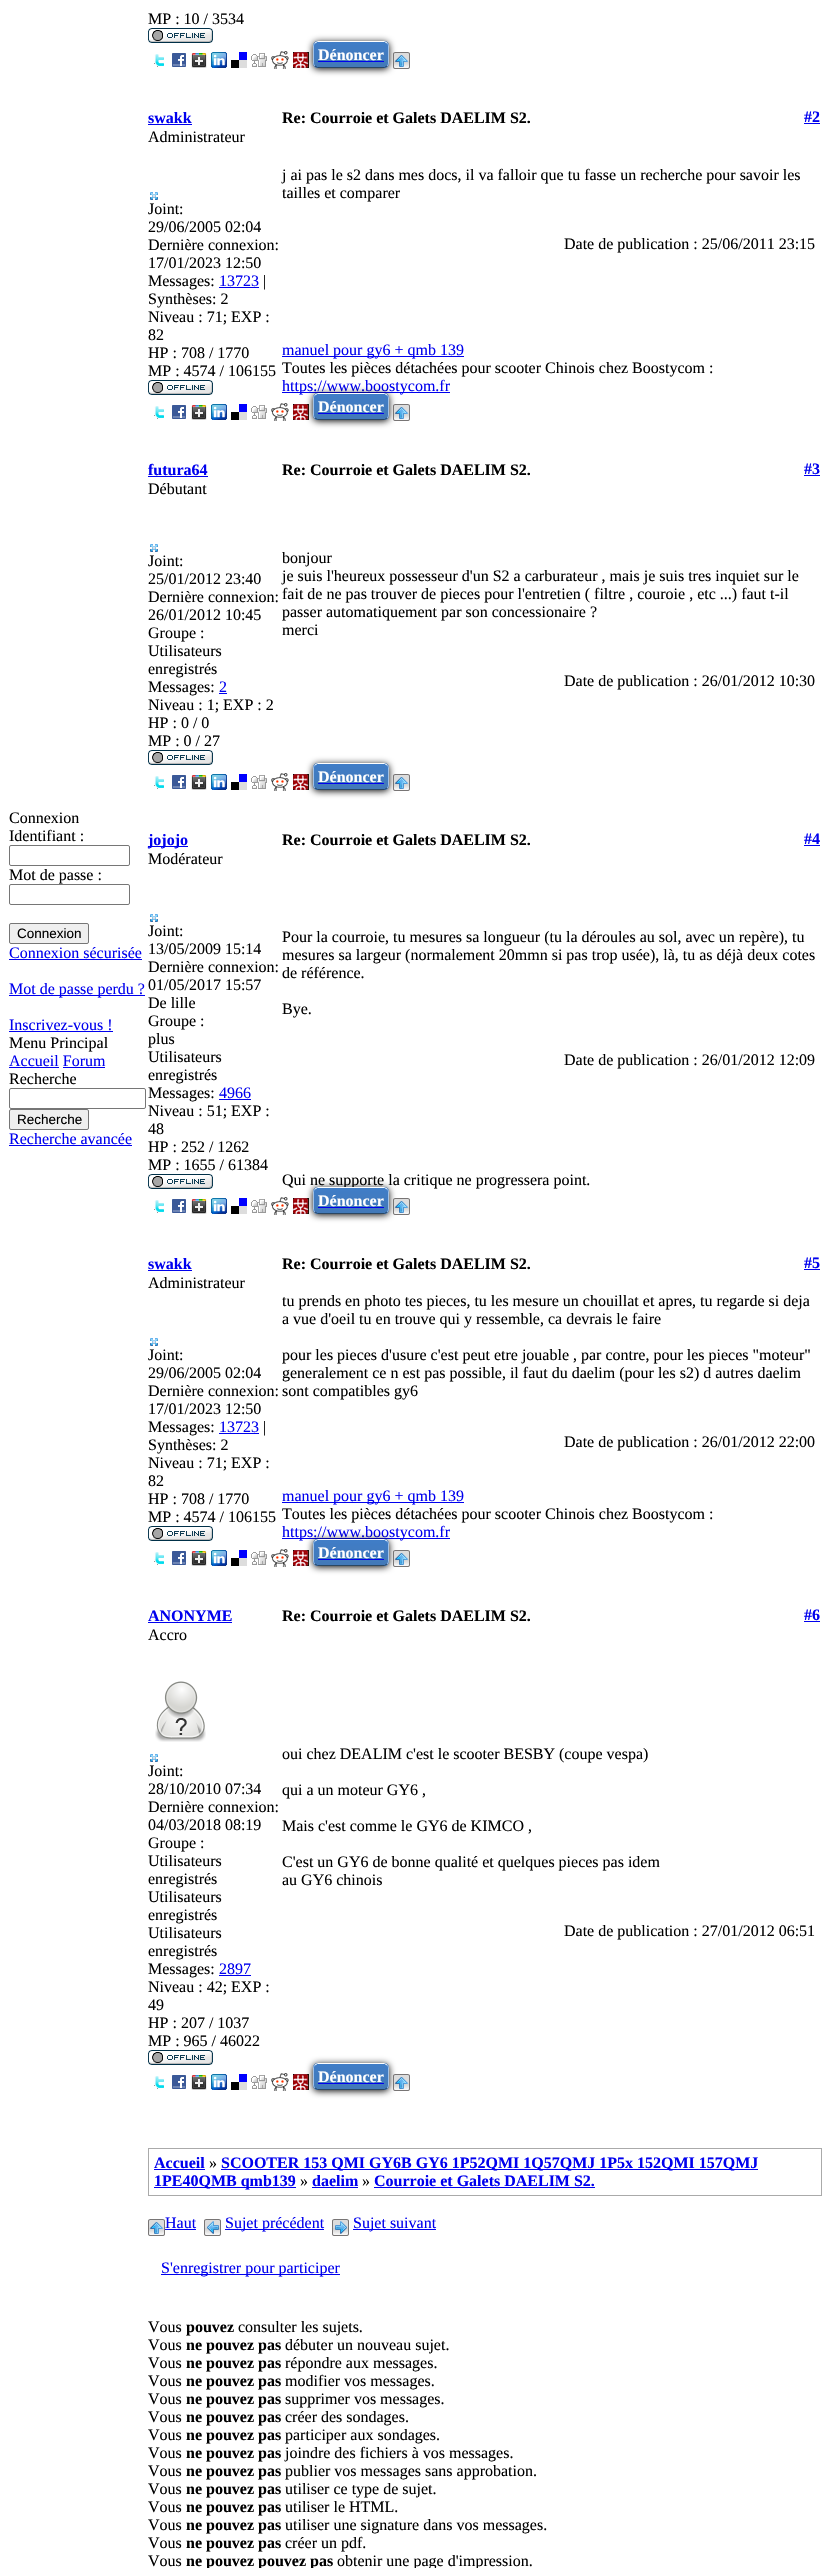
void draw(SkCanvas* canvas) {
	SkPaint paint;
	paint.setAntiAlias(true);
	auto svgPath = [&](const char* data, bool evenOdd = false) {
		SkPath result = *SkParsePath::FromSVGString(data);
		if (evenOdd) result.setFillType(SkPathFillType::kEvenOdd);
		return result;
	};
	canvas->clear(0xffffffff);
	SkFont f1(fontMgr->matchFamilyStyle("Liberation Serif", SkFontStyle::Normal()), 16);
	f1.setSubpixel(true);
	paint.setColor(0xff000000);
	canvas->drawString("Connexion", 9, 823, f1, paint);
	canvas->drawString("Identifiant :", 9, 841, f1, paint);
	paint.setStroke(true);
	paint.setStrokeWidth(1);
	paint.setColor(0xff767676);
	canvas->drawRoundRect(SkRect::MakeXYWH(9.5, 845.5, 120, 20), 1.5, 1.5, paint);
	paint.setStroke(false);
	paint.setColor(0xff000000);
	canvas->drawString("Mot de passe :", 9, 880, f1, paint);
	paint.setStroke(true);
	paint.setColor(0xff767676);
	canvas->drawRoundRect(SkRect::MakeXYWH(9.5, 884.5, 120, 20), 1.5, 1.5, paint);
	paint.setStroke(false);
	paint.setColor(0xffefefef);
	canvas->drawRoundRect(SkRect::MakeXYWH(9.5, 923.5, 79, 20), 1.5, 1.5, paint);
	paint.setStroke(true);
	paint.setColor(0xff767676);
	canvas->drawRoundRect(SkRect::MakeXYWH(9.5, 923.5, 79, 20), 1.5, 1.5, paint);
	SkFont f2(fontMgr->matchFamilyStyle("Liberation Sans", SkFontStyle::Normal()), 13.5);
	f2.setSubpixel(true);
	paint.setStroke(false);
	paint.setColor(0xff000000);
	canvas->drawString("Connexion", 17, 938, f2, paint);
	paint.setColor(0xff0000ee);
	canvas->drawString("Connexion sécurisée", 9, 958, f1, paint);
	canvas->drawRect(SkRect::MakeXYWH(9, 959, 133, 1), paint);
	canvas->drawRect(SkRect::MakeXYWH(9, 995, 136, 1), paint);
	canvas->drawString("Mot de passe perdu ?", 9, 994, f1, paint);
	canvas->drawString("Inscrivez-vous !", 9, 1030, f1, paint);
	canvas->drawRect(SkRect::MakeXYWH(9, 1031, 104, 1), paint);
	paint.setColor(0xff000000);
	canvas->drawString("Menu Principal", 9, 1048, f1, paint);
	paint.setColor(0xff0000ee);
	canvas->drawString("Accueil Forum", 9, 1066, f1, paint);
	canvas->drawRect(SkRect::MakeXYWH(9, 1067, 50, 1), paint);
	canvas->drawRect(SkRect::MakeXYWH(63, 1067, 42, 1), paint);
	paint.setColor(0xff000000);
	canvas->drawString("Recherche", 9, 1084, f1, paint);
	paint.setStroke(true);
	paint.setColor(0xff767676);
	canvas->drawRoundRect(SkRect::MakeXYWH(9.5, 1088.5, 136, 20), 1.5, 1.5, paint);
	paint.setStroke(false);
	paint.setColor(0xffefefef);
	canvas->drawRoundRect(SkRect::MakeXYWH(9.5, 1109.5, 79, 20), 1.5, 1.5, paint);
	paint.setStroke(true);
	paint.setColor(0xff767676);
	canvas->drawRoundRect(SkRect::MakeXYWH(9.5, 1109.5, 79, 20), 1.5, 1.5, paint);
	paint.setStroke(false);
	paint.setColor(0xff000000);
	canvas->drawString("Recherche", 17, 1124, f2, paint);
	paint.setColor(0xff0000ee);
	canvas->drawString("Recherche avancée", 9, 1144, f1, paint);
	canvas->drawRect(SkRect::MakeXYWH(9, 1145, 123, 1), paint);
	paint.setColor(0xff000000);
	canvas->drawString("MP : 10 / 3534", 148, 24, f1, paint);
	canvas->drawImageRect(SkImages::DeferredFromEncodedData(SkData::MakeFromFileName("img1.png")), SkRect::MakeXYWH(148, 28, 65, 15), SkSamplingOptions());
	canvas->drawImageRect(SkImages::DeferredFromEncodedData(SkData::MakeFromFileName("img2.png")), SkRect::MakeXYWH(154, 54, 10, 13), SkSamplingOptions());
	canvas->drawImageRect(SkImages::DeferredFromEncodedData(SkData::MakeFromFileName("img3.png")), SkRect::MakeXYWH(172, 53, 14, 14), SkSamplingOptions());
	canvas->drawImageRect(SkImages::DeferredFromEncodedData(SkData::MakeFromFileName("img4.png")), SkRect::MakeXYWH(191, 53, 16, 15), SkSamplingOptions());
	canvas->drawImageRect(SkImages::DeferredFromEncodedData(SkData::MakeFromFileName("img5.png")), SkRect::MakeXYWH(211, 52, 16, 16), SkSamplingOptions());
	canvas->drawImageRect(SkImages::DeferredFromEncodedData(SkData::MakeFromFileName("img6.png")), SkRect::MakeXYWH(231, 52, 16, 16), SkSamplingOptions());
	canvas->drawImageRect(SkImages::DeferredFromEncodedData(SkData::MakeFromFileName("img7.png")), SkRect::MakeXYWH(251, 53, 16, 14), SkSamplingOptions());
	canvas->drawImageRect(SkImages::DeferredFromEncodedData(SkData::MakeFromFileName("img8.png")), SkRect::MakeXYWH(271, 51, 18, 18), SkSamplingOptions());
	canvas->drawImageRect(SkImages::DeferredFromEncodedData(SkData::MakeFromFileName("img9.png")), SkRect::MakeXYWH(293, 52, 16, 16), SkSamplingOptions());
	paint.setColor(0xff080808);
	paint.setMaskFilter(SkMaskFilter::MakeBlur(kNormal_SkBlurStyle, 3.5));
	canvas->drawRoundRect(SkRect::MakeXYWH(313, 42, 76, 27), 5, 5, paint);
	paint.setMaskFilter(nullptr);
	canvas->save();
	canvas->clipPath(svgPath("M318 41H384C387 41 389 43 389 46V63C389 66 387 68 384 68H318C315 68 313 66 313 63V46C313 43 315 41 318 41Z"), true);
	{
		const SkColor colors[] = {0xff407dc7, 0xff4279b8};
		const float stops[] = {0, 1};
		const SkPoint ends[] = {{351, 42}, {351, 67}};
		paint.setShader(SkGradientShader::MakeLinear(ends, colors, stops, 2, SkTileMode::kClamp));
		paint.setAlpha(255);
	}
	canvas->drawRect(SkRect::MakeXYWH(313, 42, 76, 25), paint);
	canvas->restore();
	SkFont f3(fontMgr->matchFamilyStyle("Liberation Serif", SkFontStyle::Bold()), 16);
	f3.setSubpixel(true);
	paint.setShader(nullptr);
	paint.setColor(0xffffffff);
	canvas->drawString("Dénoncer", 318, 60, f3, paint);
	canvas->save();
	canvas->clipPath(svgPath("M318 41H384C387 41 389 43 389 46V63C389 66 387 68 384 68H318C315 68 313 66 313 63V46C313 43 315 41 318 41Z"), true);
	{
		const SkColor colors[] = {0xff407dc7, 0xff4279b8};
		const float stops[] = {0, 1};
		const SkPoint ends[] = {{351, 17}, {351, 42}};
		paint.setShader(SkGradientShader::MakeLinear(ends, colors, stops, 2, SkTileMode::kClamp));
		paint.setAlpha(255);
	}
	canvas->drawRect(SkRect::MakeXYWH(313, 41, 76, 1), paint);
	{
		const SkColor colors[] = {0xff407dc7, 0xff4279b8};
		const float stops[] = {0, 1};
		const SkPoint ends[] = {{351, 67}, {351, 92}};
		paint.setShader(SkGradientShader::MakeLinear(ends, colors, stops, 2, SkTileMode::kClamp));
		paint.setAlpha(255);
	}
	canvas->drawRect(SkRect::MakeXYWH(313, 67, 76, 1), paint);
	canvas->restore();
	paint.setStroke(true);
	paint.setShader(nullptr);
	paint.setColor(0xffffffff);
	canvas->drawPath(svgPath("M315 43L317.5 41.5H384.5L387 43"), paint);
	paint.setColor(0xffa1c1e6);
	canvas->drawPath(svgPath("M387 43C388 43.5 388.5 45 388.5 46V63C388.5 64 388 65.5 387 66"), paint);
	paint.setColor(0xff2b4763);
	canvas->drawPath(svgPath("M387 66L384.5 67.5H317.5L315 66"), paint);
	paint.setColor(0xffa1c1e6);
	canvas->drawPath(svgPath("M315 66C314 65.5 313.5 64 313.5 63V46C313.5 45 314 43.5 315 43"), paint);
	paint.setStroke(false);
	paint.setColor(0xff0000ee);
	canvas->drawRect(SkRect::MakeXYWH(318, 61, 66, 1), paint);
	canvas->drawImageRect(SkImages::DeferredFromEncodedData(SkData::MakeFromFileName("img10.png")), SkRect::MakeXYWH(393, 52, 17, 17), SkSamplingOptions());
	canvas->drawString("swakk", 148, 123, f3, paint);
	canvas->drawRect(SkRect::MakeXYWH(148, 124, 44, 1), paint);
	paint.setColor(0xff000000);
	canvas->drawString("Re: Courroie et Galets DAELIM S2.", 282, 123, f3, paint);
	paint.setColor(0xff0000ee);
	canvas->drawString("#2", 804, 122, f3, paint);
	canvas->drawRect(SkRect::MakeXYWH(804, 123, 16, 1), paint);
	paint.setColor(0xff000000);
	canvas->drawString("Administrateur", 148, 142, f1, paint);
	canvas->drawImageRect(SkImages::DeferredFromEncodedData(SkData::MakeFromFileName("img11.png")), SkRect::MakeXYWH(150, 192, 8, 8), SkSamplingOptions());
	canvas->drawString("Joint:", 148, 214, f1, paint);
	canvas->drawString("29/06/2005 02:04", 148, 232, f1, paint);
	canvas->drawString("Dernière connexion:", 148, 250, f1, paint);
	canvas->drawString("17/01/2023 12:50", 148, 268, f1, paint);
	canvas->drawString("Messages:", 148, 286, f1, paint);
	paint.setColor(0xff0000ee);
	canvas->drawString("13723", 219, 286, f1, paint);
	canvas->drawRect(SkRect::MakeXYWH(219, 287, 40, 1), paint);
	paint.setColor(0xff000000);
	canvas->drawString("|", 263, 286, f1, paint);
	canvas->drawString("Synthèses: 2", 148, 304, f1, paint);
	canvas->drawString("Niveau : 71; EXP :", 148, 322, f1, paint);
	canvas->drawString("82", 148, 340, f1, paint);
	canvas->drawString("HP : 708 / 1770", 148, 358, f1, paint);
	canvas->drawString("MP : 4574 / 106155", 148, 376, f1, paint);
	canvas->drawImageRect(SkImages::DeferredFromEncodedData(SkData::MakeFromFileName("img1.png")), SkRect::MakeXYWH(148, 380, 65, 15), SkSamplingOptions());
	canvas->drawString("j ai pas le s2 dans mes docs, il va falloir que tu fasse un recherche pour savoir les", 282, 180, f1, paint);
	canvas->drawString("tailles et comparer", 282, 198, f1, paint);
	canvas->drawString("Date de publication : 25/06/2011 23:15", 564, 249, f1, paint);
	paint.setColor(0xff0000ee);
	canvas->drawRect(SkRect::MakeXYWH(282, 356, 182, 1), paint);
	canvas->drawString("manuel pour gy6 + qmb 139", 282, 355, f1, paint);
	paint.setColor(0xff000000);
	canvas->drawString("Toutes les pièces détachées pour scooter Chinois chez Boostycom :", 282, 373, f1, paint);
	paint.setColor(0xff0000ee);
	canvas->drawRect(SkRect::MakeXYWH(282, 392, 168, 1), paint);
	canvas->drawString("https://www.boostycom.fr", 282, 391, f1, paint);
	canvas->drawImageRect(SkImages::DeferredFromEncodedData(SkData::MakeFromFileName("img2.png")), SkRect::MakeXYWH(154, 406, 10, 13), SkSamplingOptions());
	canvas->drawImageRect(SkImages::DeferredFromEncodedData(SkData::MakeFromFileName("img3.png")), SkRect::MakeXYWH(172, 405, 14, 14), SkSamplingOptions());
	canvas->drawImageRect(SkImages::DeferredFromEncodedData(SkData::MakeFromFileName("img4.png")), SkRect::MakeXYWH(191, 405, 16, 15), SkSamplingOptions());
	canvas->drawImageRect(SkImages::DeferredFromEncodedData(SkData::MakeFromFileName("img5.png")), SkRect::MakeXYWH(211, 404, 16, 16), SkSamplingOptions());
	canvas->drawImageRect(SkImages::DeferredFromEncodedData(SkData::MakeFromFileName("img6.png")), SkRect::MakeXYWH(231, 404, 16, 16), SkSamplingOptions());
	canvas->drawImageRect(SkImages::DeferredFromEncodedData(SkData::MakeFromFileName("img7.png")), SkRect::MakeXYWH(251, 405, 16, 14), SkSamplingOptions());
	canvas->drawImageRect(SkImages::DeferredFromEncodedData(SkData::MakeFromFileName("img8.png")), SkRect::MakeXYWH(271, 403, 18, 18), SkSamplingOptions());
	canvas->drawImageRect(SkImages::DeferredFromEncodedData(SkData::MakeFromFileName("img9.png")), SkRect::MakeXYWH(293, 404, 16, 16), SkSamplingOptions());
	paint.setColor(0xff080808);
	paint.setMaskFilter(SkMaskFilter::MakeBlur(kNormal_SkBlurStyle, 3.5));
	canvas->drawRoundRect(SkRect::MakeXYWH(313, 394, 76, 27), 5, 5, paint);
	paint.setMaskFilter(nullptr);
	canvas->save();
	canvas->clipPath(svgPath("M318 393H384C387 393 389 395 389 398V415C389 418 387 420 384 420H318C315 420 313 418 313 415V398C313 395 315 393 318 393Z"), true);
	{
		const SkColor colors[] = {0xff407dc7, 0xff4279b8};
		const float stops[] = {0, 1};
		const SkPoint ends[] = {{351, 394}, {351, 419}};
		paint.setShader(SkGradientShader::MakeLinear(ends, colors, stops, 2, SkTileMode::kClamp));
		paint.setAlpha(255);
	}
	canvas->drawRect(SkRect::MakeXYWH(313, 394, 76, 25), paint);
	canvas->restore();
	paint.setShader(nullptr);
	paint.setColor(0xffffffff);
	canvas->drawString("Dénoncer", 318, 412, f3, paint);
	canvas->save();
	canvas->clipPath(svgPath("M318 393H384C387 393 389 395 389 398V415C389 418 387 420 384 420H318C315 420 313 418 313 415V398C313 395 315 393 318 393Z"), true);
	{
		const SkColor colors[] = {0xff407dc7, 0xff4279b8};
		const float stops[] = {0, 1};
		const SkPoint ends[] = {{351, 369}, {351, 394}};
		paint.setShader(SkGradientShader::MakeLinear(ends, colors, stops, 2, SkTileMode::kClamp));
		paint.setAlpha(255);
	}
	canvas->drawRect(SkRect::MakeXYWH(313, 393, 76, 1), paint);
	{
		const SkColor colors[] = {0xff407dc7, 0xff4279b8};
		const float stops[] = {0, 1};
		const SkPoint ends[] = {{351, 419}, {351, 444}};
		paint.setShader(SkGradientShader::MakeLinear(ends, colors, stops, 2, SkTileMode::kClamp));
		paint.setAlpha(255);
	}
	canvas->drawRect(SkRect::MakeXYWH(313, 419, 76, 1), paint);
	canvas->restore();
	paint.setStroke(true);
	paint.setShader(nullptr);
	paint.setColor(0xffffffff);
	canvas->drawPath(svgPath("M315 395L317.5 393.5H384.5L387 395"), paint);
	paint.setColor(0xffa1c1e6);
	canvas->drawPath(svgPath("M387 395C388 395.5 388.5 397 388.5 398V415C388.5 416 388 417.5 387 418"), paint);
	paint.setColor(0xff2b4763);
	canvas->drawPath(svgPath("M387 418L384.5 419.5H317.5L315 418"), paint);
	paint.setColor(0xffa1c1e6);
	canvas->drawPath(svgPath("M315 418C314 417.5 313.5 416 313.5 415V398C313.5 397 314 395.5 315 395"), paint);
	paint.setStroke(false);
	paint.setColor(0xff0000ee);
	canvas->drawRect(SkRect::MakeXYWH(318, 413, 66, 1), paint);
	canvas->drawImageRect(SkImages::DeferredFromEncodedData(SkData::MakeFromFileName("img10.png")), SkRect::MakeXYWH(393, 404, 17, 17), SkSamplingOptions());
	canvas->drawString("futura64", 148, 475, f3, paint);
	canvas->drawRect(SkRect::MakeXYWH(148, 476, 60, 1), paint);
	paint.setColor(0xff000000);
	canvas->drawString("Re: Courroie et Galets DAELIM S2.", 282, 475, f3, paint);
	paint.setColor(0xff0000ee);
	canvas->drawString("#3", 804, 474, f3, paint);
	canvas->drawRect(SkRect::MakeXYWH(804, 475, 16, 1), paint);
	paint.setColor(0xff000000);
	canvas->drawString("Débutant", 148, 494, f1, paint);
	canvas->drawImageRect(SkImages::DeferredFromEncodedData(SkData::MakeFromFileName("img11.png")), SkRect::MakeXYWH(150, 544, 8, 8), SkSamplingOptions());
	canvas->drawString("Joint:", 148, 566, f1, paint);
	canvas->drawString("25/01/2012 23:40", 148, 584, f1, paint);
	canvas->drawString("Dernière connexion:", 148, 602, f1, paint);
	canvas->drawString("26/01/2012 10:45", 148, 620, f1, paint);
	canvas->drawString("Groupe :", 148, 638, f1, paint);
	canvas->drawString("Utilisateurs", 148, 656, f1, paint);
	canvas->drawString("enregistrés", 148, 674, f1, paint);
	canvas->drawString("Messages:", 148, 692, f1, paint);
	paint.setColor(0xff0000ee);
	canvas->drawString("2", 219, 692, f1, paint);
	canvas->drawRect(SkRect::MakeXYWH(219, 693, 8, 1), paint);
	paint.setColor(0xff000000);
	canvas->drawString("Niveau : 1; EXP : 2", 148, 710, f1, paint);
	canvas->drawString("HP : 0 / 0", 148, 728, f1, paint);
	canvas->drawString("MP : 0 / 27", 148, 746, f1, paint);
	canvas->drawImageRect(SkImages::DeferredFromEncodedData(SkData::MakeFromFileName("img1.png")), SkRect::MakeXYWH(148, 750, 65, 15), SkSamplingOptions());
	canvas->drawString("bonjour", 282, 563, f1, paint);
	canvas->drawString("je suis l'heureux possesseur d'un S2 a carburateur , mais je suis tres inquiet sur le", 282, 581, f1, paint);
	canvas->drawString("fait de ne pas trouver de pieces pour l'entretien ( filtre , couroie , etc ...) faut t-il", 282, 599, f1, paint);
	canvas->drawString("passer automatiquement par son concessionaire ?", 282, 617, f1, paint);
	canvas->drawString("merci", 282, 635, f1, paint);
	canvas->drawString("Date de publication : 26/01/2012 10:30", 564, 686, f1, paint);
	canvas->drawImageRect(SkImages::DeferredFromEncodedData(SkData::MakeFromFileName("img2.png")), SkRect::MakeXYWH(154, 776, 10, 13), SkSamplingOptions());
	canvas->drawImageRect(SkImages::DeferredFromEncodedData(SkData::MakeFromFileName("img3.png")), SkRect::MakeXYWH(172, 775, 14, 14), SkSamplingOptions());
	canvas->drawImageRect(SkImages::DeferredFromEncodedData(SkData::MakeFromFileName("img4.png")), SkRect::MakeXYWH(191, 775, 16, 15), SkSamplingOptions());
	canvas->drawImageRect(SkImages::DeferredFromEncodedData(SkData::MakeFromFileName("img5.png")), SkRect::MakeXYWH(211, 774, 16, 16), SkSamplingOptions());
	canvas->drawImageRect(SkImages::DeferredFromEncodedData(SkData::MakeFromFileName("img6.png")), SkRect::MakeXYWH(231, 774, 16, 16), SkSamplingOptions());
	canvas->drawImageRect(SkImages::DeferredFromEncodedData(SkData::MakeFromFileName("img7.png")), SkRect::MakeXYWH(251, 775, 16, 14), SkSamplingOptions());
	canvas->drawImageRect(SkImages::DeferredFromEncodedData(SkData::MakeFromFileName("img8.png")), SkRect::MakeXYWH(271, 773, 18, 18), SkSamplingOptions());
	canvas->drawImageRect(SkImages::DeferredFromEncodedData(SkData::MakeFromFileName("img9.png")), SkRect::MakeXYWH(293, 774, 16, 16), SkSamplingOptions());
	paint.setColor(0xff080808);
	paint.setMaskFilter(SkMaskFilter::MakeBlur(kNormal_SkBlurStyle, 3.5));
	canvas->drawRoundRect(SkRect::MakeXYWH(313, 764, 76, 27), 5, 5, paint);
	paint.setMaskFilter(nullptr);
	canvas->save();
	canvas->clipPath(svgPath("M318 763H384C387 763 389 765 389 768V785C389 788 387 790 384 790H318C315 790 313 788 313 785V768C313 765 315 763 318 763Z"), true);
	{
		const SkColor colors[] = {0xff407dc7, 0xff4279b8};
		const float stops[] = {0, 1};
		const SkPoint ends[] = {{351, 764}, {351, 789}};
		paint.setShader(SkGradientShader::MakeLinear(ends, colors, stops, 2, SkTileMode::kClamp));
		paint.setAlpha(255);
	}
	canvas->drawRect(SkRect::MakeXYWH(313, 764, 76, 25), paint);
	canvas->restore();
	paint.setShader(nullptr);
	paint.setColor(0xffffffff);
	canvas->drawString("Dénoncer", 318, 782, f3, paint);
	canvas->save();
	canvas->clipPath(svgPath("M318 763H384C387 763 389 765 389 768V785C389 788 387 790 384 790H318C315 790 313 788 313 785V768C313 765 315 763 318 763Z"), true);
	{
		const SkColor colors[] = {0xff407dc7, 0xff4279b8};
		const float stops[] = {0, 1};
		const SkPoint ends[] = {{351, 739}, {351, 764}};
		paint.setShader(SkGradientShader::MakeLinear(ends, colors, stops, 2, SkTileMode::kClamp));
		paint.setAlpha(255);
	}
	canvas->drawRect(SkRect::MakeXYWH(313, 763, 76, 1), paint);
	{
		const SkColor colors[] = {0xff407dc7, 0xff4279b8};
		const float stops[] = {0, 1};
		const SkPoint ends[] = {{351, 789}, {351, 814}};
		paint.setShader(SkGradientShader::MakeLinear(ends, colors, stops, 2, SkTileMode::kClamp));
		paint.setAlpha(255);
	}
	canvas->drawRect(SkRect::MakeXYWH(313, 789, 76, 1), paint);
	canvas->restore();
	paint.setStroke(true);
	paint.setShader(nullptr);
	paint.setColor(0xffffffff);
	canvas->drawPath(svgPath("M315 765L317.5 763.5H384.5L387 765"), paint);
	paint.setColor(0xffa1c1e6);
	canvas->drawPath(svgPath("M387 765C388 765.5 388.5 767 388.5 768V785C388.5 786 388 787.5 387 788"), paint);
	paint.setColor(0xff2b4763);
	canvas->drawPath(svgPath("M387 788L384.5 789.5H317.5L315 788"), paint);
	paint.setColor(0xffa1c1e6);
	canvas->drawPath(svgPath("M315 788C314 787.5 313.5 786 313.5 785V768C313.5 767 314 765.5 315 765"), paint);
	paint.setStroke(false);
	paint.setColor(0xff0000ee);
	canvas->drawRect(SkRect::MakeXYWH(318, 783, 66, 1), paint);
	canvas->drawImageRect(SkImages::DeferredFromEncodedData(SkData::MakeFromFileName("img10.png")), SkRect::MakeXYWH(393, 774, 17, 17), SkSamplingOptions());
	canvas->drawRect(SkRect::MakeXYWH(148, 846, 40, 1), paint);
	canvas->drawString("jojojo", 148, 845, f3, paint);
	paint.setColor(0xff000000);
	canvas->drawString("Re: Courroie et Galets DAELIM S2.", 282, 845, f3, paint);
	paint.setColor(0xff0000ee);
	canvas->drawString("#4", 804, 844, f3, paint);
	canvas->drawRect(SkRect::MakeXYWH(804, 845, 16, 1), paint);
	paint.setColor(0xff000000);
	canvas->drawString("Modérateur", 148, 864, f1, paint);
	canvas->drawImageRect(SkImages::DeferredFromEncodedData(SkData::MakeFromFileName("img11.png")), SkRect::MakeXYWH(150, 914, 8, 8), SkSamplingOptions());
	canvas->drawString("Joint:", 148, 936, f1, paint);
	canvas->drawString("13/05/2009 15:14", 148, 954, f1, paint);
	canvas->drawString("Dernière connexion:", 148, 972, f1, paint);
	canvas->drawString("01/05/2017 15:57", 148, 990, f1, paint);
	canvas->drawString("De lille", 148, 1008, f1, paint);
	canvas->drawString("Groupe :", 148, 1026, f1, paint);
	canvas->drawString("plus", 148, 1044, f1, paint);
	canvas->drawString("Utilisateurs", 148, 1062, f1, paint);
	canvas->drawString("enregistrés", 148, 1080, f1, paint);
	canvas->drawString("Messages:", 148, 1098, f1, paint);
	paint.setColor(0xff0000ee);
	canvas->drawString("4966", 219, 1098, f1, paint);
	canvas->drawRect(SkRect::MakeXYWH(219, 1099, 32, 1), paint);
	paint.setColor(0xff000000);
	canvas->drawString("Niveau : 51; EXP :", 148, 1116, f1, paint);
	canvas->drawString("48", 148, 1134, f1, paint);
	canvas->drawString("HP : 252 / 1262", 148, 1152, f1, paint);
	canvas->drawString("MP : 1655 / 61384", 148, 1170, f1, paint);
	canvas->drawImageRect(SkImages::DeferredFromEncodedData(SkData::MakeFromFileName("img1.png")), SkRect::MakeXYWH(148, 1174, 65, 15), SkSamplingOptions());
	canvas->drawString("Pour la courroie, tu mesures sa longueur (tu la déroules au sol, avec un repère), tu", 282, 942, f1, paint);
	canvas->drawString("mesures sa largeur (normalement 20mmn si pas trop usée), là, tu as déjà deux cotes", 282, 960, f1, paint);
	canvas->drawString("de référence.", 282, 978, f1, paint);
	canvas->drawString("Bye.", 282, 1014, f1, paint);
	canvas->drawString("Date de publication : 26/01/2012 12:09", 564, 1065, f1, paint);
	canvas->drawString("Qui ne supporte la critique ne progressera point.", 282, 1185, f1, paint);
	canvas->drawImageRect(SkImages::DeferredFromEncodedData(SkData::MakeFromFileName("img2.png")), SkRect::MakeXYWH(154, 1200, 10, 13), SkSamplingOptions());
	canvas->drawImageRect(SkImages::DeferredFromEncodedData(SkData::MakeFromFileName("img3.png")), SkRect::MakeXYWH(172, 1199, 14, 14), SkSamplingOptions());
	canvas->drawImageRect(SkImages::DeferredFromEncodedData(SkData::MakeFromFileName("img4.png")), SkRect::MakeXYWH(191, 1199, 16, 15), SkSamplingOptions());
	canvas->drawImageRect(SkImages::DeferredFromEncodedData(SkData::MakeFromFileName("img5.png")), SkRect::MakeXYWH(211, 1198, 16, 16), SkSamplingOptions());
	canvas->drawImageRect(SkImages::DeferredFromEncodedData(SkData::MakeFromFileName("img6.png")), SkRect::MakeXYWH(231, 1198, 16, 16), SkSamplingOptions());
	canvas->drawImageRect(SkImages::DeferredFromEncodedData(SkData::MakeFromFileName("img7.png")), SkRect::MakeXYWH(251, 1199, 16, 14), SkSamplingOptions());
	canvas->drawImageRect(SkImages::DeferredFromEncodedData(SkData::MakeFromFileName("img8.png")), SkRect::MakeXYWH(271, 1197, 18, 18), SkSamplingOptions());
	canvas->drawImageRect(SkImages::DeferredFromEncodedData(SkData::MakeFromFileName("img9.png")), SkRect::MakeXYWH(293, 1198, 16, 16), SkSamplingOptions());
	paint.setColor(0xff080808);
	paint.setMaskFilter(SkMaskFilter::MakeBlur(kNormal_SkBlurStyle, 3.5));
	canvas->drawRoundRect(SkRect::MakeXYWH(313, 1188, 76, 27), 5, 5, paint);
	paint.setMaskFilter(nullptr);
	canvas->save();
	canvas->clipPath(svgPath("M318 1187H384C387 1187 389 1189 389 1192V1209C389 1212 387 1214 384 1214H318C315 1214 313 1212 313 1209V1192C313 1189 315 1187 318 1187Z"), true);
	{
		const SkColor colors[] = {0xff407dc7, 0xff4279b8};
		const float stops[] = {0, 1};
		const SkPoint ends[] = {{351, 1188}, {351, 1213}};
		paint.setShader(SkGradientShader::MakeLinear(ends, colors, stops, 2, SkTileMode::kClamp));
		paint.setAlpha(255);
	}
	canvas->drawRect(SkRect::MakeXYWH(313, 1188, 76, 25), paint);
	canvas->restore();
	paint.setShader(nullptr);
	paint.setColor(0xffffffff);
	canvas->drawString("Dénoncer", 318, 1206, f3, paint);
	canvas->save();
	canvas->clipPath(svgPath("M318 1187H384C387 1187 389 1189 389 1192V1209C389 1212 387 1214 384 1214H318C315 1214 313 1212 313 1209V1192C313 1189 315 1187 318 1187Z"), true);
	{
		const SkColor colors[] = {0xff407dc7, 0xff4279b8};
		const float stops[] = {0, 1};
		const SkPoint ends[] = {{351, 1163}, {351, 1188}};
		paint.setShader(SkGradientShader::MakeLinear(ends, colors, stops, 2, SkTileMode::kClamp));
		paint.setAlpha(255);
	}
	canvas->drawRect(SkRect::MakeXYWH(313, 1187, 76, 1), paint);
	{
		const SkColor colors[] = {0xff407dc7, 0xff4279b8};
		const float stops[] = {0, 1};
		const SkPoint ends[] = {{351, 1213}, {351, 1238}};
		paint.setShader(SkGradientShader::MakeLinear(ends, colors, stops, 2, SkTileMode::kClamp));
		paint.setAlpha(255);
	}
	canvas->drawRect(SkRect::MakeXYWH(313, 1213, 76, 1), paint);
	canvas->restore();
	paint.setStroke(true);
	paint.setShader(nullptr);
	paint.setColor(0xffffffff);
	canvas->drawPath(svgPath("M315 1189L317.5 1187.5H384.5L387 1189"), paint);
	paint.setColor(0xffa1c1e6);
	canvas->drawPath(svgPath("M387 1189C388 1189.5 388.5 1191 388.5 1192V1209C388.5 1210 388 1211.5 387 1212"), paint);
	paint.setColor(0xff2b4763);
	canvas->drawPath(svgPath("M387 1212L384.5 1213.5H317.5L315 1212"), paint);
	paint.setColor(0xffa1c1e6);
	canvas->drawPath(svgPath("M315 1212C314 1211.5 313.5 1210 313.5 1209V1192C313.5 1191 314 1189.5 315 1189"), paint);
	paint.setStroke(false);
	paint.setColor(0xff0000ee);
	canvas->drawRect(SkRect::MakeXYWH(318, 1207, 66, 1), paint);
	canvas->drawImageRect(SkImages::DeferredFromEncodedData(SkData::MakeFromFileName("img10.png")), SkRect::MakeXYWH(393, 1198, 17, 17), SkSamplingOptions());
	canvas->drawString("swakk", 148, 1269, f3, paint);
	canvas->drawRect(SkRect::MakeXYWH(148, 1270, 44, 1), paint);
	paint.setColor(0xff000000);
	canvas->drawString("Re: Courroie et Galets DAELIM S2.", 282, 1269, f3, paint);
	paint.setColor(0xff0000ee);
	canvas->drawString("#5", 804, 1268, f3, paint);
	canvas->drawRect(SkRect::MakeXYWH(804, 1269, 16, 1), paint);
	paint.setColor(0xff000000);
	canvas->drawString("Administrateur", 148, 1288, f1, paint);
	canvas->drawImageRect(SkImages::DeferredFromEncodedData(SkData::MakeFromFileName("img11.png")), SkRect::MakeXYWH(150, 1338, 8, 8), SkSamplingOptions());
	canvas->drawString("Joint:", 148, 1360, f1, paint);
	canvas->drawString("29/06/2005 02:04", 148, 1378, f1, paint);
	canvas->drawString("Dernière connexion:", 148, 1396, f1, paint);
	canvas->drawString("17/01/2023 12:50", 148, 1414, f1, paint);
	canvas->drawString("Messages:", 148, 1432, f1, paint);
	paint.setColor(0xff0000ee);
	canvas->drawString("13723", 219, 1432, f1, paint);
	canvas->drawRect(SkRect::MakeXYWH(219, 1433, 40, 1), paint);
	paint.setColor(0xff000000);
	canvas->drawString("|", 263, 1432, f1, paint);
	canvas->drawString("Synthèses: 2", 148, 1450, f1, paint);
	canvas->drawString("Niveau : 71; EXP :", 148, 1468, f1, paint);
	canvas->drawString("82", 148, 1486, f1, paint);
	canvas->drawString("HP : 708 / 1770", 148, 1504, f1, paint);
	canvas->drawString("MP : 4574 / 106155", 148, 1522, f1, paint);
	canvas->drawImageRect(SkImages::DeferredFromEncodedData(SkData::MakeFromFileName("img1.png")), SkRect::MakeXYWH(148, 1526, 65, 15), SkSamplingOptions());
	canvas->drawString("tu prends en photo tes pieces, tu les mesure un chouillat et apres, tu regarde si deja", 282, 1306, f1, paint);
	canvas->drawString("a vue d'oeil tu en trouve qui y ressemble, ca devrais le faire", 282, 1324, f1, paint);
	canvas->drawString("pour les pieces d'usure c'est peut etre jouable , par contre, pour les pieces \"moteur\"", 282, 1360, f1, paint);
	canvas->drawString("generalement ce n est pas possible, il faut du daelim (pour les s2) d autres daelim", 282, 1378, f1, paint);
	canvas->drawString("sont compatibles gy6", 282, 1396, f1, paint);
	canvas->drawString("Date de publication : 26/01/2012 22:00", 564, 1447, f1, paint);
	paint.setColor(0xff0000ee);
	canvas->drawRect(SkRect::MakeXYWH(282, 1502, 182, 1), paint);
	canvas->drawString("manuel pour gy6 + qmb 139", 282, 1501, f1, paint);
	paint.setColor(0xff000000);
	canvas->drawString("Toutes les pièces détachées pour scooter Chinois chez Boostycom :", 282, 1519, f1, paint);
	paint.setColor(0xff0000ee);
	canvas->drawRect(SkRect::MakeXYWH(282, 1538, 168, 1), paint);
	canvas->drawString("https://www.boostycom.fr", 282, 1537, f1, paint);
	canvas->drawImageRect(SkImages::DeferredFromEncodedData(SkData::MakeFromFileName("img2.png")), SkRect::MakeXYWH(154, 1552, 10, 13), SkSamplingOptions());
	canvas->drawImageRect(SkImages::DeferredFromEncodedData(SkData::MakeFromFileName("img3.png")), SkRect::MakeXYWH(172, 1551, 14, 14), SkSamplingOptions());
	canvas->drawImageRect(SkImages::DeferredFromEncodedData(SkData::MakeFromFileName("img4.png")), SkRect::MakeXYWH(191, 1551, 16, 15), SkSamplingOptions());
	canvas->drawImageRect(SkImages::DeferredFromEncodedData(SkData::MakeFromFileName("img5.png")), SkRect::MakeXYWH(211, 1550, 16, 16), SkSamplingOptions());
	canvas->drawImageRect(SkImages::DeferredFromEncodedData(SkData::MakeFromFileName("img6.png")), SkRect::MakeXYWH(231, 1550, 16, 16), SkSamplingOptions());
	canvas->drawImageRect(SkImages::DeferredFromEncodedData(SkData::MakeFromFileName("img7.png")), SkRect::MakeXYWH(251, 1551, 16, 14), SkSamplingOptions());
	canvas->drawImageRect(SkImages::DeferredFromEncodedData(SkData::MakeFromFileName("img8.png")), SkRect::MakeXYWH(271, 1549, 18, 18), SkSamplingOptions());
	canvas->drawImageRect(SkImages::DeferredFromEncodedData(SkData::MakeFromFileName("img9.png")), SkRect::MakeXYWH(293, 1550, 16, 16), SkSamplingOptions());
	paint.setColor(0xff080808);
	paint.setMaskFilter(SkMaskFilter::MakeBlur(kNormal_SkBlurStyle, 3.5));
	canvas->drawRoundRect(SkRect::MakeXYWH(313, 1540, 76, 27), 5, 5, paint);
	paint.setMaskFilter(nullptr);
	canvas->save();
	canvas->clipPath(svgPath("M318 1539H384C387 1539 389 1541 389 1544V1561C389 1564 387 1566 384 1566H318C315 1566 313 1564 313 1561V1544C313 1541 315 1539 318 1539Z"), true);
	{
		const SkColor colors[] = {0xff407dc7, 0xff4279b8};
		const float stops[] = {0, 1};
		const SkPoint ends[] = {{351, 1540}, {351, 1565}};
		paint.setShader(SkGradientShader::MakeLinear(ends, colors, stops, 2, SkTileMode::kClamp));
		paint.setAlpha(255);
	}
	canvas->drawRect(SkRect::MakeXYWH(313, 1540, 76, 25), paint);
	canvas->restore();
	paint.setShader(nullptr);
	paint.setColor(0xffffffff);
	canvas->drawString("Dénoncer", 318, 1558, f3, paint);
	canvas->save();
	canvas->clipPath(svgPath("M318 1539H384C387 1539 389 1541 389 1544V1561C389 1564 387 1566 384 1566H318C315 1566 313 1564 313 1561V1544C313 1541 315 1539 318 1539Z"), true);
	{
		const SkColor colors[] = {0xff407dc7, 0xff4279b8};
		const float stops[] = {0, 1};
		const SkPoint ends[] = {{351, 1515}, {351, 1540}};
		paint.setShader(SkGradientShader::MakeLinear(ends, colors, stops, 2, SkTileMode::kClamp));
		paint.setAlpha(255);
	}
	canvas->drawRect(SkRect::MakeXYWH(313, 1539, 76, 1), paint);
	{
		const SkColor colors[] = {0xff407dc7, 0xff4279b8};
		const float stops[] = {0, 1};
		const SkPoint ends[] = {{351, 1565}, {351, 1590}};
		paint.setShader(SkGradientShader::MakeLinear(ends, colors, stops, 2, SkTileMode::kClamp));
		paint.setAlpha(255);
	}
	canvas->drawRect(SkRect::MakeXYWH(313, 1565, 76, 1), paint);
	canvas->restore();
	paint.setStroke(true);
	paint.setShader(nullptr);
	paint.setColor(0xffffffff);
	canvas->drawPath(svgPath("M315 1541L317.5 1539.5H384.5L387 1541"), paint);
	paint.setColor(0xffa1c1e6);
	canvas->drawPath(svgPath("M387 1541C388 1541.5 388.5 1543 388.5 1544V1561C388.5 1562 388 1563.5 387 1564"), paint);
	paint.setColor(0xff2b4763);
	canvas->drawPath(svgPath("M387 1564L384.5 1565.5H317.5L315 1564"), paint);
	paint.setColor(0xffa1c1e6);
	canvas->drawPath(svgPath("M315 1564C314 1563.5 313.5 1562 313.5 1561V1544C313.5 1543 314 1541.5 315 1541"), paint);
	paint.setStroke(false);
	paint.setColor(0xff0000ee);
	canvas->drawRect(SkRect::MakeXYWH(318, 1559, 66, 1), paint);
	canvas->drawImageRect(SkImages::DeferredFromEncodedData(SkData::MakeFromFileName("img10.png")), SkRect::MakeXYWH(393, 1550, 17, 17), SkSamplingOptions());
	canvas->drawString("ANONYME", 148, 1621, f3, paint);
	canvas->drawRect(SkRect::MakeXYWH(148, 1622, 84, 1), paint);
	paint.setColor(0xff000000);
	canvas->drawString("Re: Courroie et Galets DAELIM S2.", 282, 1621, f3, paint);
	paint.setColor(0xff0000ee);
	canvas->drawString("#6", 804, 1620, f3, paint);
	canvas->drawRect(SkRect::MakeXYWH(804, 1621, 16, 1), paint);
	paint.setColor(0xff000000);
	canvas->drawString("Accro", 148, 1640, f1, paint);
	canvas->drawImageRect(SkImages::DeferredFromEncodedData(SkData::MakeFromFileName("img12.png")), SkRect::MakeXYWH(155, 1681, 51, 61), SkSamplingOptions());
	canvas->drawImageRect(SkImages::DeferredFromEncodedData(SkData::MakeFromFileName("img11.png")), SkRect::MakeXYWH(150, 1754, 8, 8), SkSamplingOptions());
	canvas->drawString("Joint:", 148, 1776, f1, paint);
	canvas->drawString("28/10/2010 07:34", 148, 1794, f1, paint);
	canvas->drawString("Dernière connexion:", 148, 1812, f1, paint);
	canvas->drawString("04/03/2018 08:19", 148, 1830, f1, paint);
	canvas->drawString("Groupe :", 148, 1848, f1, paint);
	canvas->drawString("Utilisateurs", 148, 1866, f1, paint);
	canvas->drawString("enregistrés", 148, 1884, f1, paint);
	canvas->drawString("Utilisateurs", 148, 1902, f1, paint);
	canvas->drawString("enregistrés", 148, 1920, f1, paint);
	canvas->drawString("Utilisateurs", 148, 1938, f1, paint);
	canvas->drawString("enregistrés", 148, 1956, f1, paint);
	canvas->drawString("Messages:", 148, 1974, f1, paint);
	paint.setColor(0xff0000ee);
	canvas->drawString("2897", 219, 1974, f1, paint);
	canvas->drawRect(SkRect::MakeXYWH(219, 1975, 32, 1), paint);
	paint.setColor(0xff000000);
	canvas->drawString("Niveau : 42; EXP :", 148, 1992, f1, paint);
	canvas->drawString("49", 148, 2010, f1, paint);
	canvas->drawString("HP : 207 / 1037", 148, 2028, f1, paint);
	canvas->drawString("MP : 965 / 46022", 148, 2046, f1, paint);
	canvas->drawImageRect(SkImages::DeferredFromEncodedData(SkData::MakeFromFileName("img1.png")), SkRect::MakeXYWH(148, 2050, 65, 15), SkSamplingOptions());
	canvas->drawString("oui chez DEALIM c'est le scooter BESBY (coupe vespa)", 282, 1759, f1, paint);
	canvas->drawString("qui a un moteur GY6 ,", 282, 1795, f1, paint);
	canvas->drawString("Mais c'est comme le GY6 de KIMCO ,", 282, 1831, f1, paint);
	canvas->drawString("C'est un GY6 de bonne qualité et quelques pieces pas idem", 282, 1867, f1, paint);
	canvas->drawString("au GY6 chinois", 282, 1885, f1, paint);
	canvas->drawString("Date de publication : 27/01/2012 06:51", 564, 1936, f1, paint);
	canvas->drawImageRect(SkImages::DeferredFromEncodedData(SkData::MakeFromFileName("img2.png")), SkRect::MakeXYWH(154, 2076, 10, 13), SkSamplingOptions());
	canvas->drawImageRect(SkImages::DeferredFromEncodedData(SkData::MakeFromFileName("img3.png")), SkRect::MakeXYWH(172, 2075, 14, 14), SkSamplingOptions());
	canvas->drawImageRect(SkImages::DeferredFromEncodedData(SkData::MakeFromFileName("img4.png")), SkRect::MakeXYWH(191, 2075, 16, 15), SkSamplingOptions());
	canvas->drawImageRect(SkImages::DeferredFromEncodedData(SkData::MakeFromFileName("img5.png")), SkRect::MakeXYWH(211, 2074, 16, 16), SkSamplingOptions());
	canvas->drawImageRect(SkImages::DeferredFromEncodedData(SkData::MakeFromFileName("img6.png")), SkRect::MakeXYWH(231, 2074, 16, 16), SkSamplingOptions());
	canvas->drawImageRect(SkImages::DeferredFromEncodedData(SkData::MakeFromFileName("img7.png")), SkRect::MakeXYWH(251, 2075, 16, 14), SkSamplingOptions());
	canvas->drawImageRect(SkImages::DeferredFromEncodedData(SkData::MakeFromFileName("img8.png")), SkRect::MakeXYWH(271, 2073, 18, 18), SkSamplingOptions());
	canvas->drawImageRect(SkImages::DeferredFromEncodedData(SkData::MakeFromFileName("img9.png")), SkRect::MakeXYWH(293, 2074, 16, 16), SkSamplingOptions());
	paint.setColor(0xff080808);
	paint.setMaskFilter(SkMaskFilter::MakeBlur(kNormal_SkBlurStyle, 3.5));
	canvas->drawRoundRect(SkRect::MakeXYWH(313, 2064, 76, 27), 5, 5, paint);
	paint.setMaskFilter(nullptr);
	canvas->save();
	canvas->clipPath(svgPath("M318 2063H384C387 2063 389 2065 389 2068V2085C389 2088 387 2090 384 2090H318C315 2090 313 2088 313 2085V2068C313 2065 315 2063 318 2063Z"), true);
	{
		const SkColor colors[] = {0xff407dc7, 0xff4279b8};
		const float stops[] = {0, 1};
		const SkPoint ends[] = {{351, 2064}, {351, 2089}};
		paint.setShader(SkGradientShader::MakeLinear(ends, colors, stops, 2, SkTileMode::kClamp));
		paint.setAlpha(255);
	}
	canvas->drawRect(SkRect::MakeXYWH(313, 2064, 76, 25), paint);
	canvas->restore();
	paint.setShader(nullptr);
	paint.setColor(0xffffffff);
	canvas->drawString("Dénoncer", 318, 2082, f3, paint);
	canvas->save();
	canvas->clipPath(svgPath("M318 2063H384C387 2063 389 2065 389 2068V2085C389 2088 387 2090 384 2090H318C315 2090 313 2088 313 2085V2068C313 2065 315 2063 318 2063Z"), true);
	{
		const SkColor colors[] = {0xff407dc7, 0xff4279b8};
		const float stops[] = {0, 1};
		const SkPoint ends[] = {{351, 2039}, {351, 2064}};
		paint.setShader(SkGradientShader::MakeLinear(ends, colors, stops, 2, SkTileMode::kClamp));
		paint.setAlpha(255);
	}
	canvas->drawRect(SkRect::MakeXYWH(313, 2063, 76, 1), paint);
	{
		const SkColor colors[] = {0xff407dc7, 0xff4279b8};
		const float stops[] = {0, 1};
		const SkPoint ends[] = {{351, 2089}, {351, 2114}};
		paint.setShader(SkGradientShader::MakeLinear(ends, colors, stops, 2, SkTileMode::kClamp));
		paint.setAlpha(255);
	}
	canvas->drawRect(SkRect::MakeXYWH(313, 2089, 76, 1), paint);
	canvas->restore();
	paint.setStroke(true);
	paint.setShader(nullptr);
	paint.setColor(0xffffffff);
	canvas->drawPath(svgPath("M315 2065L317.5 2063.5H384.5L387 2065"), paint);
	paint.setColor(0xffa1c1e6);
	canvas->drawPath(svgPath("M387 2065C388 2065.5 388.5 2067 388.5 2068V2085C388.5 2086 388 2087.5 387 2088"), paint);
	paint.setColor(0xff2b4763);
	canvas->drawPath(svgPath("M387 2088L384.5 2089.5H317.5L315 2088"), paint);
	paint.setColor(0xffa1c1e6);
	canvas->drawPath(svgPath("M315 2088C314 2087.5 313.5 2086 313.5 2085V2068C313.5 2067 314 2065.5 315 2065"), paint);
	paint.setStroke(false);
	paint.setColor(0xff0000ee);
	canvas->drawRect(SkRect::MakeXYWH(318, 2083, 66, 1), paint);
	canvas->drawImageRect(SkImages::DeferredFromEncodedData(SkData::MakeFromFileName("img10.png")), SkRect::MakeXYWH(393, 2074, 17, 17), SkSamplingOptions());
	paint.setStroke(true);
	paint.setColor(0xffaaaaaa);
	canvas->drawRect(SkRect::MakeXYWH(148.5, 2148.5, 673, 47), paint);
	paint.setStroke(false);
	paint.setColor(0xff0000ee);
	canvas->drawString("Accueil", 154, 2168, f3, paint);
	canvas->drawRect(SkRect::MakeXYWH(154, 2169, 51, 1), paint);
	paint.setColor(0xff000000);
	canvas->drawString("»", 209, 2168, f1, paint);
	paint.setColor(0xff0000ee);
	canvas->drawRect(SkRect::MakeXYWH(221, 2169, 537, 1), paint);
	canvas->drawString("SCOOTER 153 QMI GY6B GY6 1P52QMI 1Q57QMJ 1P5x 152QMI 157QMJ", 221, 2168, f3, paint);
	canvas->drawRect(SkRect::MakeXYWH(154, 2187, 142, 1), paint);
	canvas->drawString("1PE40QMB qmb139", 154, 2186, f3, paint);
	paint.setColor(0xff000000);
	canvas->drawString("»", 300, 2186, f1, paint);
	paint.setColor(0xff0000ee);
	canvas->drawString("daelim", 312, 2186, f3, paint);
	canvas->drawRect(SkRect::MakeXYWH(312, 2187, 46, 1), paint);
	paint.setColor(0xff000000);
	canvas->drawString("»", 362, 2186, f1, paint);
	paint.setColor(0xff0000ee);
	canvas->drawString("Courroie et Galets DAELIM S2.", 374, 2186, f3, paint);
	canvas->drawRect(SkRect::MakeXYWH(374, 2187, 221, 1), paint);
	canvas->drawImageRect(SkImages::DeferredFromEncodedData(SkData::MakeFromFileName("img13.png")), SkRect::MakeXYWH(148, 2219, 17, 17), SkSamplingOptions());
	canvas->drawString("Haut", 165, 2228, f1, paint);
	canvas->drawRect(SkRect::MakeXYWH(165, 2229, 31, 1), paint);
	canvas->drawImageRect(SkImages::DeferredFromEncodedData(SkData::MakeFromFileName("img14.png")), SkRect::MakeXYWH(204, 2219, 17, 17), SkSamplingOptions());
	canvas->drawRect(SkRect::MakeXYWH(225, 2229, 99, 1), paint);
	canvas->drawString("Sujet précédent", 225, 2228, f1, paint);
	canvas->drawImageRect(SkImages::DeferredFromEncodedData(SkData::MakeFromFileName("img15.png")), SkRect::MakeXYWH(332, 2219, 17, 17), SkSamplingOptions());
	canvas->drawRect(SkRect::MakeXYWH(353, 2229, 83, 1), paint);
	canvas->drawString("Sujet suivant", 353, 2228, f1, paint);
	canvas->drawRect(SkRect::MakeXYWH(161, 2274, 179, 1), paint);
	canvas->drawString("S'enregistrer pour participer", 161, 2273, f1, paint);
	paint.setColor(0xff000000);
	canvas->drawString("Vous", 148, 2332, f1, paint);
	canvas->drawString("pouvez", 186, 2332, f3, paint);
	canvas->drawString("consulter les sujets.", 238, 2332, f1, paint);
	canvas->drawString("Vous", 148, 2350, f1, paint);
	canvas->drawString("ne pouvez pas", 186, 2350, f3, paint);
	canvas->drawString("débuter un nouveau sujet.", 285, 2350, f1, paint);
	canvas->drawString("Vous", 148, 2368, f1, paint);
	canvas->drawString("ne pouvez pas", 186, 2368, f3, paint);
	canvas->drawString("répondre aux messages.", 285, 2368, f1, paint);
	canvas->drawString("Vous", 148, 2386, f1, paint);
	canvas->drawString("ne pouvez pas", 186, 2386, f3, paint);
	canvas->drawString("modifier vos messages.", 285, 2386, f1, paint);
	canvas->drawString("Vous", 148, 2404, f1, paint);
	canvas->drawString("ne pouvez pas", 186, 2404, f3, paint);
	canvas->drawString("supprimer vos messages.", 285, 2404, f1, paint);
	canvas->drawString("Vous", 148, 2422, f1, paint);
	canvas->drawString("ne pouvez pas", 186, 2422, f3, paint);
	canvas->drawString("créer des sondages.", 285, 2422, f1, paint);
	canvas->drawString("Vous", 148, 2440, f1, paint);
	canvas->drawString("ne pouvez pas", 186, 2440, f3, paint);
	canvas->drawString("participer aux sondages.", 285, 2440, f1, paint);
	canvas->drawString("Vous", 148, 2458, f1, paint);
	canvas->drawString("ne pouvez pas", 186, 2458, f3, paint);
	canvas->drawString("joindre des fichiers à vos messages.", 285, 2458, f1, paint);
	canvas->drawString("Vous", 148, 2476, f1, paint);
	canvas->drawString("ne pouvez pas", 186, 2476, f3, paint);
	canvas->drawString("publier vos messages sans approbation.", 285, 2476, f1, paint);
	canvas->drawString("Vous", 148, 2494, f1, paint);
	canvas->drawString("ne pouvez pas", 186, 2494, f3, paint);
	canvas->drawString("utiliser ce type de sujet.", 285, 2494, f1, paint);
	canvas->drawString("Vous", 148, 2512, f1, paint);
	canvas->drawString("ne pouvez pas", 186, 2512, f3, paint);
	canvas->drawString("utiliser le HTML.", 285, 2512, f1, paint);
	canvas->drawString("Vous", 148, 2530, f1, paint);
	canvas->drawString("ne pouvez pas", 186, 2530, f3, paint);
	canvas->drawString("utiliser une signature dans vos messages.", 285, 2530, f1, paint);
	canvas->drawString("Vous", 148, 2548, f1, paint);
	canvas->drawString("ne pouvez pas", 186, 2548, f3, paint);
	canvas->drawString("créer un pdf.", 285, 2548, f1, paint);
	canvas->drawString("Vous", 148, 2566, f1, paint);
	canvas->drawString("ne pouvez pouvez pas", 186, 2566, f3, paint);
	canvas->drawString("obtenir une page d'impression.", 337, 2566, f1, paint);
}
